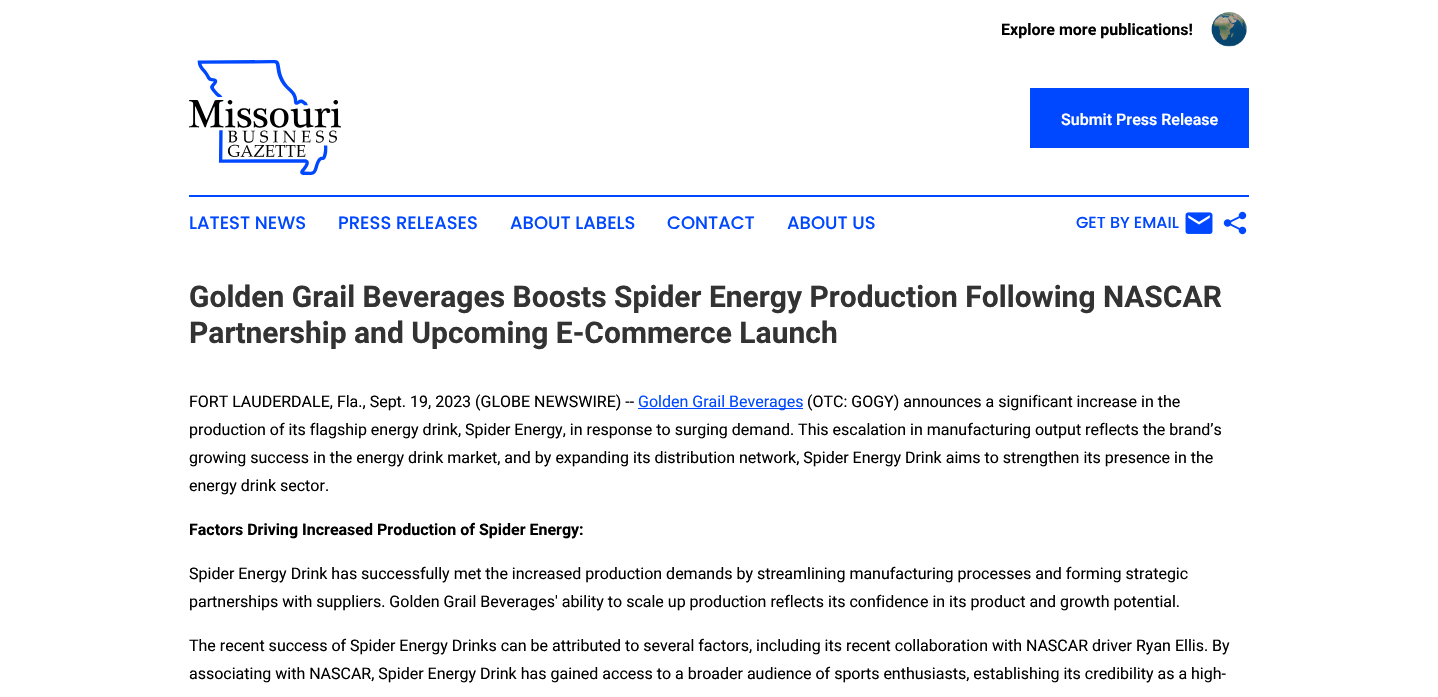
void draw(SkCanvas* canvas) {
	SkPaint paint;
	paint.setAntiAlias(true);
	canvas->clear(0xffffffff);
	SkFont f1(fontMgr->matchFamilyStyle("Roboto", SkFontStyle::Bold()), 16);
	f1.setSubpixel(true);
	paint.setColor(0xff000000);
	canvas->drawString("Explore more publications!", 1001, 35, f1, paint);
	canvas->drawImageRect(SkImages::DeferredFromEncodedData(SkData::MakeFromFileName("img1.png")), SkRect::MakeXYWH(1211, 12, 36, 35), SkSamplingOptions());
	canvas->drawImageRect(SkImages::DeferredFromEncodedData(SkData::MakeFromFileName("img2.png")), SkRect::MakeXYWH(189, 60, 152, 115), SkSamplingOptions());
	paint.setColor(0xff0048ff);
	canvas->drawRect(SkRect::MakeXYWH(1030, 88, 219, 60), paint);
	SkFont f2(fontMgr->matchFamilyStyle("Roboto", SkFontStyle(600, SkFontStyle::kNormal_Width, SkFontStyle::kUpright_Slant)), 16);
	f2.setSubpixel(true);
	paint.setColor(0xffffffff);
	canvas->drawString("Submit Press Release", 1061, 125, f2, paint);
	paint.setColor(0xff0048ff);
	canvas->drawRect(SkRect::MakeXYWH(189, 195, 1060, 2), paint);
	SkFont f3(fontMgr->matchFamilyStyle("Poppins", SkFontStyle(500, SkFontStyle::kNormal_Width, SkFontStyle::kUpright_Slant)), 18);
	f3.setSubpixel(true);
	canvas->drawString("LATEST NEWS", 189, 229, f3, paint);
	canvas->drawString("PRESS RELEASES", 338, 229, f3, paint);
	canvas->drawString("ABOUT LABELS", 510, 229, f3, paint);
	canvas->drawString("CONTACT", 667, 229, f3, paint);
	canvas->drawString("ABOUT US", 787, 229, f3, paint);
	SkFont f4(fontMgr->matchFamilyStyle("Poppins", SkFontStyle(500, SkFontStyle::kNormal_Width, SkFontStyle::kUpright_Slant)), 16);
	f4.setSubpixel(true);
	canvas->drawString("GET BY EMAIL", 1076, 228, f4, paint);
	canvas->drawImageRect(SkImages::DeferredFromEncodedData(SkData::MakeFromFileName("img3.png")), SkRect::MakeXYWH(1185, 212, 28, 22), SkSamplingOptions());
	canvas->drawImageRect(SkImages::DeferredFromEncodedData(SkData::MakeFromFileName("img4.png")), SkRect::MakeXYWH(1223, 211, 24, 24), SkSamplingOptions());
	SkFont f5(fontMgr->matchFamilyStyle("Roboto", SkFontStyle::Bold()), 30);
	f5.setSubpixel(true);
	paint.setColor(0xff333333);
	canvas->drawString("Golden Grail Beverages Boosts Spider Energy Production Following NASCAR", 189, 307, f5, paint);
	canvas->drawString("Partnership and Upcoming E-Commerce Launch", 189, 343, f5, paint);
	SkFont f6(fontMgr->matchFamilyStyle("Roboto", SkFontStyle::Normal()), 16);
	f6.setSubpixel(true);
	paint.setColor(0xff000000);
	canvas->drawString("FORT LAUDERDALE, Fla., Sept. 19, 2023 (GLOBE NEWSWIRE) --", 189, 407, f6, paint);
	paint.setColor(0xff0048ff);
	canvas->drawRect(SkRect::MakeXYWH(638, 408, 165, 1), paint);
	canvas->drawString("Golden Grail Beverages", 638, 407, f6, paint);
	paint.setColor(0xff000000);
	canvas->drawString("(OTC: GOGY) announces a significant increase in the", 807, 407, f6, paint);
	canvas->drawString("production of its flagship energy drink, Spider Energy, in response to surging demand. This escalation in manufacturing output reflects the brand’s", 189, 435, f6, paint);
	canvas->drawString("growing success in the energy drink market, and by expanding its distribution network, Spider Energy Drink aims to strengthen its presence in the", 189, 463, f6, paint);
	canvas->drawString("energy drink sector.", 189, 491, f6, paint);
	canvas->drawString("Factors Driving Increased Production of Spider Energy:", 189, 535, f1, paint);
	canvas->drawString("Spider Energy Drink has successfully met the increased production demands by streamlining manufacturing processes and forming strategic", 189, 579, f6, paint);
	canvas->drawString("partnerships with suppliers. Golden Grail Beverages' ability to scale up production reflects its confidence in its product and growth potential.", 189, 607, f6, paint);
	canvas->drawString("The recent success of Spider Energy Drinks can be attributed to several factors, including its recent collaboration with NASCAR driver Ryan Ellis. By", 189, 651, f6, paint);
	canvas->drawString("associating with NASCAR, Spider Energy Drink has gained access to a broader audience of sports enthusiasts, establishing its credibility as a high-", 189, 679, f6, paint);
}
